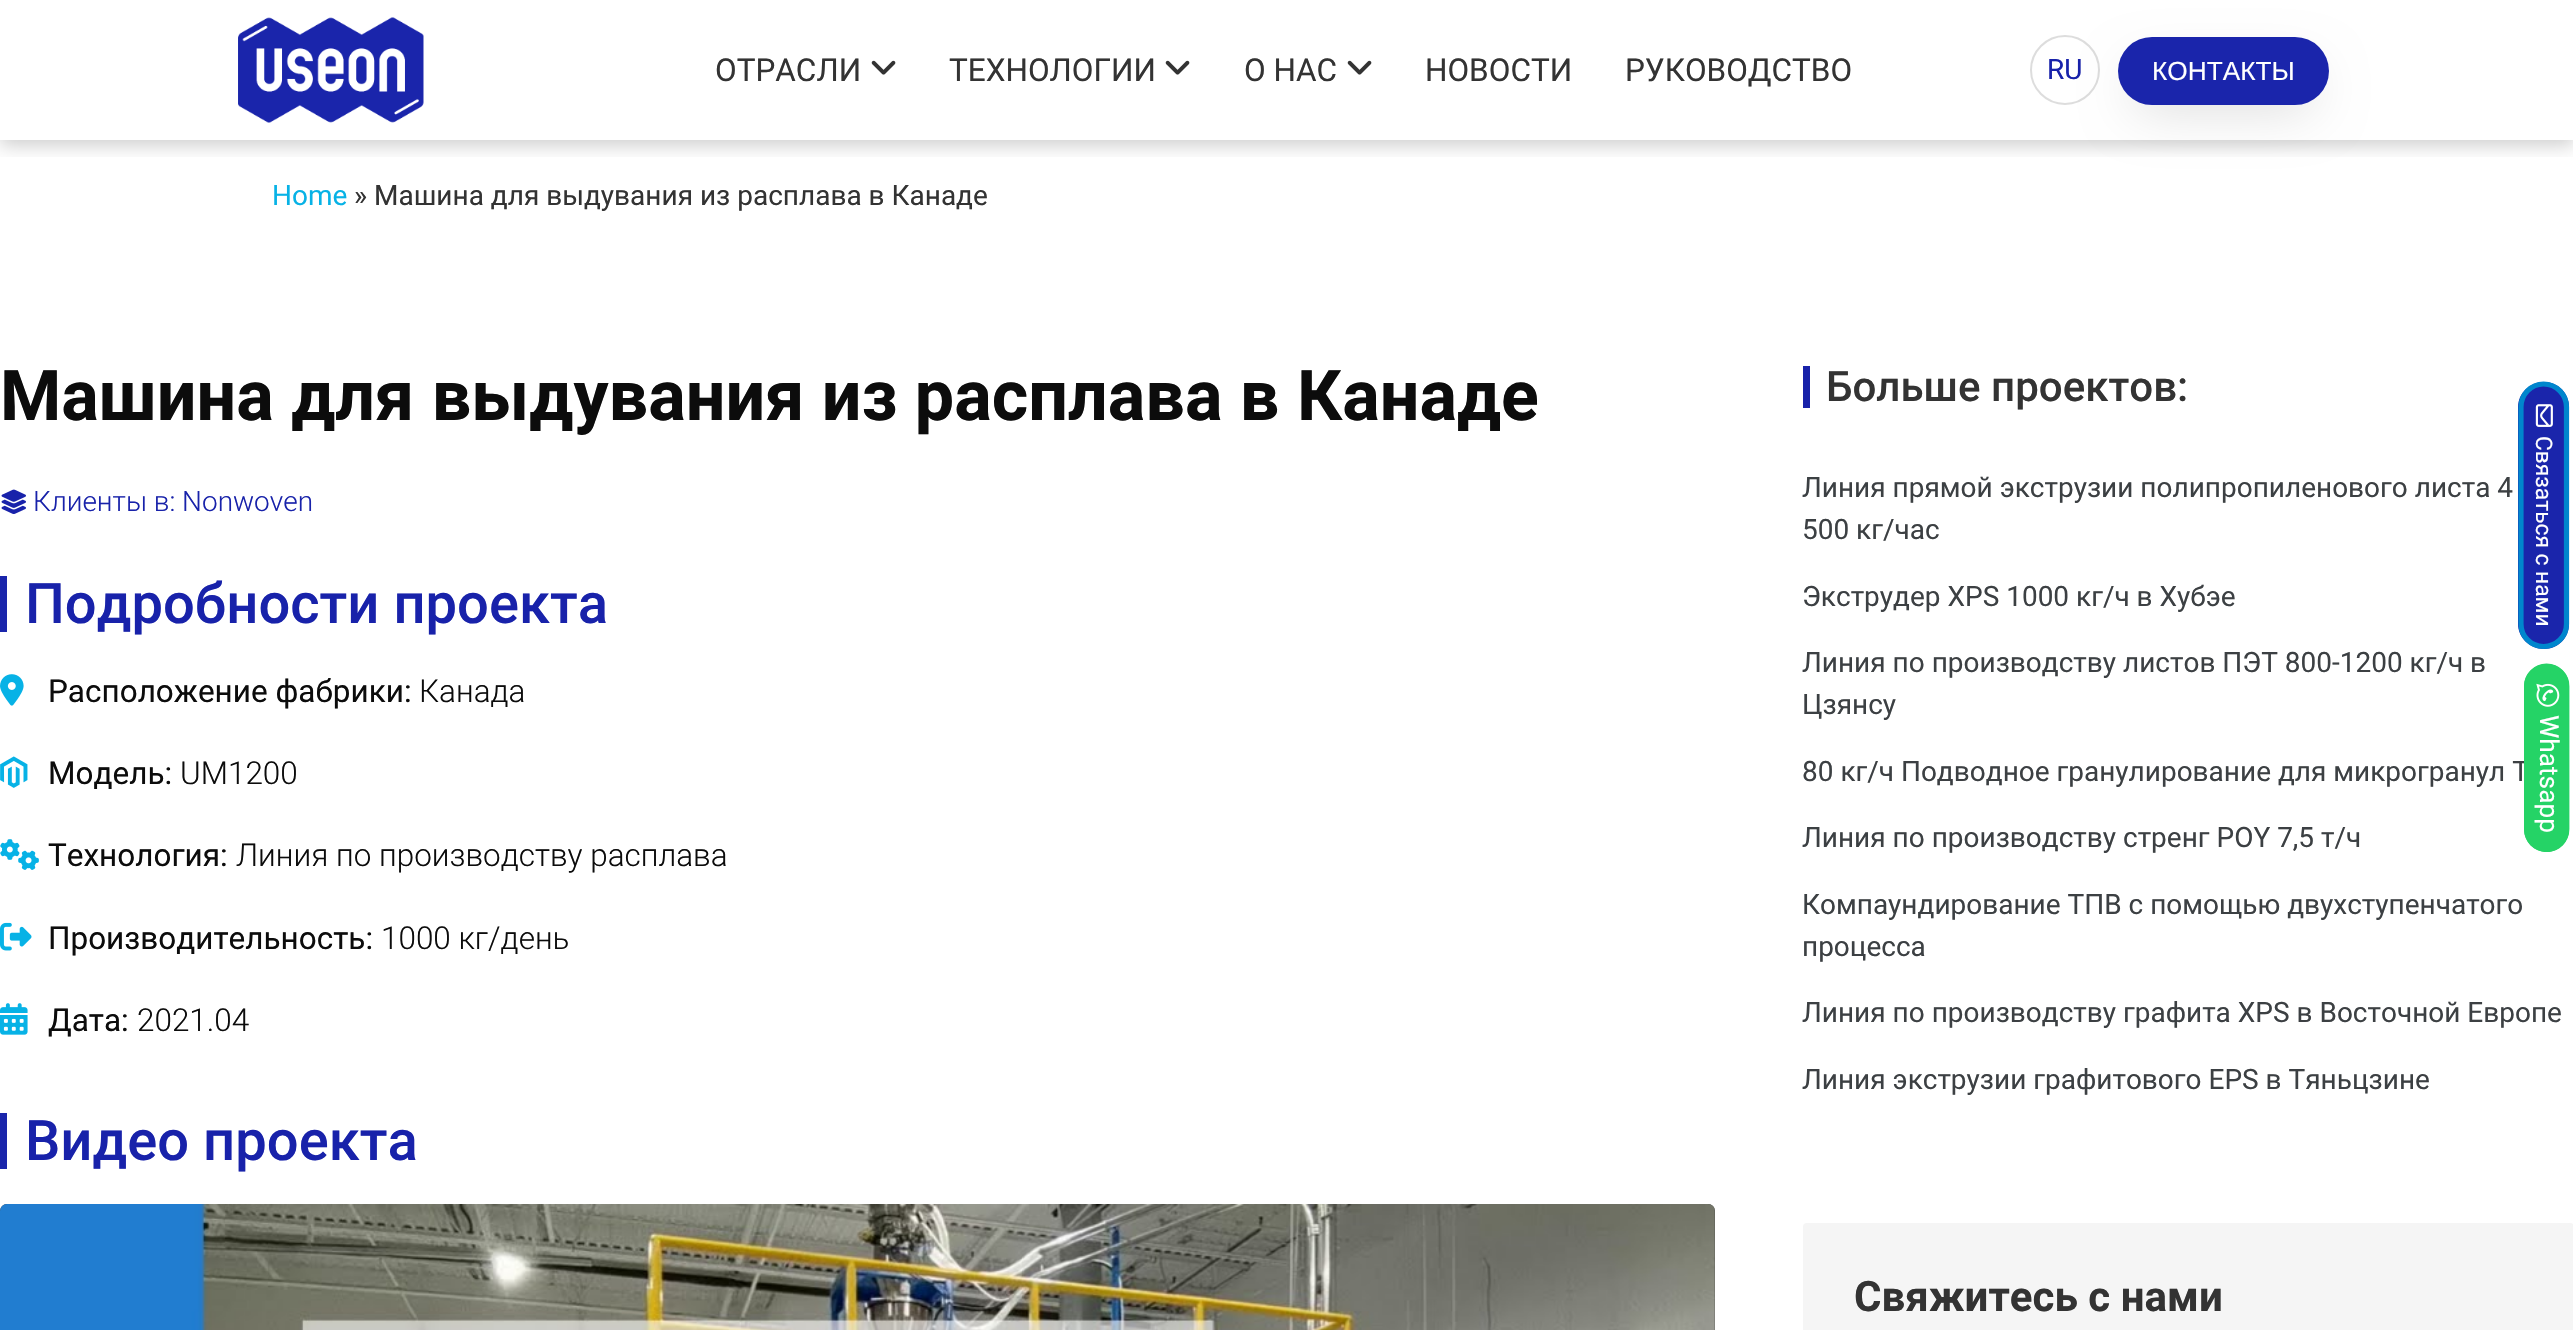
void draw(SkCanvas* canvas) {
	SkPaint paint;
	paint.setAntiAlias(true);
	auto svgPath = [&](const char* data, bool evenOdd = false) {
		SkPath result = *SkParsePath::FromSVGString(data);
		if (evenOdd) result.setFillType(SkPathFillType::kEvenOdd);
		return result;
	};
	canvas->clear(0xffffffff);
	canvas->save();
	canvas->clipRect(SkRect::MakeXYWH(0, 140, 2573, 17));
	paint.setColor(0x33000000);
	paint.setMaskFilter(SkMaskFilter::MakeBlur(kNormal_SkBlurStyle, 9));
	canvas->drawRect(SkRect::MakeXYWH(0, 5, 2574, 140), paint);
	paint.setMaskFilter(nullptr);
	canvas->restore();
	canvas->drawImageRect(SkImages::DeferredFromEncodedData(SkData::MakeFromFileName("img1.png")), SkRect::MakeXYWH(238, 17, 186, 106), SkSamplingOptions());
	SkFont f1(fontMgr->matchFamilyStyle("Roboto", SkFontStyle::Normal()), 31.5);
	f1.setSubpixel(true);
	paint.setColor(0xff333333);
	canvas->drawString("ОТРАСЛИ", 715, 81, f1, paint);
	canvas->drawImageRect(SkImages::DeferredFromEncodedData(SkData::MakeFromFileName("img2.png")), SkRect::MakeXYWH(871, 60, 25, 15), SkSamplingOptions());
	canvas->drawString("ТЕХНОЛОГИИ", 949, 81, f1, paint);
	canvas->drawImageRect(SkImages::DeferredFromEncodedData(SkData::MakeFromFileName("img2.png")), SkRect::MakeXYWH(1165, 60, 25, 15), SkSamplingOptions());
	canvas->drawString("О НАС", 1244, 81, f1, paint);
	canvas->drawImageRect(SkImages::DeferredFromEncodedData(SkData::MakeFromFileName("img2.png")), SkRect::MakeXYWH(1347, 60, 25, 15), SkSamplingOptions());
	canvas->drawString("НОВОСТИ", 1425, 81, f1, paint);
	canvas->drawString("РУКОВОДСТВО", 1625, 81, f1, paint);
	paint.setStroke(true);
	paint.setStrokeWidth(2);
	paint.setColor(0xffdddddd);
	canvas->drawCircle(2065, 70, 34, paint);
	SkFont f2(fontMgr->matchFamilyStyle("Roboto", SkFontStyle::Normal()), 28);
	f2.setSubpixel(true);
	paint.setStroke(false);
	paint.setColor(0xff1822aa);
	canvas->drawString("RU", 2047, 79, f2, paint);
	paint.setColor(0x29000000);
	paint.setMaskFilter(SkMaskFilter::MakeBlur(kNormal_SkBlurStyle, 26));
	canvas->drawRoundRect(SkRect::MakeXYWH(2133, 70, 181, 37), 18.5, 18.5, paint);
	paint.setMaskFilter(nullptr);
	paint.setColor(0xff1a25ab);
	canvas->drawRoundRect(SkRect::MakeXYWH(2118, 37, 211, 68), 34, 34, paint);
	SkFont f3(fontMgr->matchFamilyStyle("Liberation Sans", SkFontStyle::Normal()), 26.25);
	f3.setSubpixel(true);
	paint.setColor(0xffffffff);
	canvas->drawString("КОНТАКТЫ", 2152, 80, f3, paint);
	paint.setColor(0xff07b2e6);
	canvas->drawString("Home", 272, 205, f2, paint);
	paint.setColor(0xff333333);
	canvas->drawString("» Машина для выдувания из расплава в Канаде", 354, 205, f2, paint);
	SkFont f4(fontMgr->matchFamilyStyle("Roboto", SkFontStyle::Bold()), 70);
	f4.setSubpixel(true);
	paint.setColor(0xff0c0c0c);
	canvas->drawString("Машина для выдувания из расплава в Канаде", 0, 420, f4, paint);
	canvas->drawImageRect(SkImages::DeferredFromEncodedData(SkData::MakeFromFileName("img3.png")), SkRect::MakeXYWH(1, 489, 25, 25), SkSamplingOptions());
	SkFont f5(fontMgr->matchFamilyStyle("Roboto", SkFontStyle(300, SkFontStyle::kNormal_Width, SkFontStyle::kUpright_Slant)), 28);
	f5.setSubpixel(true);
	paint.setColor(0xff1822aa);
	canvas->drawString("Клиенты в: Nonwoven", 33, 511, f5, paint);
	paint.setColor(0xff1a25ab);
	canvas->drawRect(SkRect::MakeXYWH(0, 576, 7, 56), paint);
	SkFont f6(fontMgr->matchFamilyStyle("Roboto", SkFontStyle(500, SkFontStyle::kNormal_Width, SkFontStyle::kUpright_Slant)), 56);
	f6.setSubpixel(true);
	paint.setColor(0xff1822aa);
	canvas->drawString("Подробности проекта", 25, 623, f6, paint);
	canvas->drawImageRect(SkImages::DeferredFromEncodedData(SkData::MakeFromFileName("img4.png")), SkRect::MakeXYWH(0, 674, 24, 32), SkSamplingOptions());
	paint.setColor(0xff0c0c0c);
	canvas->drawString("Расположение фабрики:", 48, 702, f1, paint);
	SkFont f7(fontMgr->matchFamilyStyle("Roboto", SkFontStyle(300, SkFontStyle::kNormal_Width, SkFontStyle::kUpright_Slant)), 31.5);
	f7.setSubpixel(true);
	canvas->drawString("Канада", 419, 702, f7, paint);
	canvas->drawImageRect(SkImages::DeferredFromEncodedData(SkData::MakeFromFileName("img5.png")), SkRect::MakeXYWH(0, 756, 28, 32), SkSamplingOptions());
	canvas->drawString("Модель:", 48, 784, f1, paint);
	canvas->drawString("UM1200", 180, 784, f7, paint);
	canvas->drawImageRect(SkImages::DeferredFromEncodedData(SkData::MakeFromFileName("img6.png")), SkRect::MakeXYWH(0, 839, 39, 31), SkSamplingOptions());
	canvas->drawString("Технология:", 48, 866, f1, paint);
	canvas->drawString("Линия по производству расплава", 236, 866, f7, paint);
	canvas->drawImageRect(SkImages::DeferredFromEncodedData(SkData::MakeFromFileName("img7.png")), SkRect::MakeXYWH(0, 922, 32, 29), SkSamplingOptions());
	canvas->drawString("Производительность:", 48, 949, f1, paint);
	canvas->drawString("1000 кг/день", 381, 949, f7, paint);
	canvas->drawImageRect(SkImages::DeferredFromEncodedData(SkData::MakeFromFileName("img8.png")), SkRect::MakeXYWH(0, 1003, 28, 32), SkSamplingOptions());
	canvas->drawString("Дата:", 48, 1031, f1, paint);
	canvas->drawString("2021.04", 137, 1031, f7, paint);
	paint.setColor(0xff1a25ab);
	canvas->drawRect(SkRect::MakeXYWH(0, 1113, 7, 56), paint);
	paint.setColor(0xff1822aa);
	canvas->drawString("Видео проекта", 25, 1160, f6, paint);
	canvas->drawImageRect(SkImages::DeferredFromEncodedData(SkData::MakeFromFileName("img9.png")), SkRect::MakeXYWH(0, 1204, 1715, 126), SkSamplingOptions());
	canvas->drawImageRect(SkImages::DeferredFromEncodedData(SkData::MakeFromFileName("img10.png")), SkRect::MakeXYWH(0, 1204, 1715, 126), SkSamplingOptions());
	canvas->drawRect(SkRect::MakeXYWH(1803, 366, 7, 42), paint);
	SkFont f8(fontMgr->matchFamilyStyle("Roboto", SkFontStyle(500, SkFontStyle::kNormal_Width, SkFontStyle::kUpright_Slant)), 42);
	f8.setSubpixel(true);
	paint.setColor(0xff333333);
	canvas->drawString("Больше проектов:", 1826, 401, f8, paint);
	paint.setColor(0xff1a25ab);
	canvas->drawPath(svgPath("M2569 407V624C2569 638 2558 649 2544 649C2530 649 2518 638 2518 624V407C2518 393 2530 382 2544 382C2558 382 2569 393 2569 407Z"), paint);
	paint.setStroke(true);
	paint.setStrokeWidth(5.2);
	paint.setColor(0xff0086cd);
	canvas->drawPath(svgPath("M2566.5 407V624C2566.5 636.5 2556.5 646.5 2543.5 646.5C2531 646.5 2521 636.5 2521 624V407C2521 394.5 2531 384 2543.5 384C2556.5 384 2566.5 394.5 2566.5 407Z"), paint);
	canvas->drawImageRect(SkImages::DeferredFromEncodedData(SkData::MakeFromFileName("img11.png")), SkRect::MakeXYWH(2535, 404, 18, 23), SkSamplingOptions());
	SkFont f9(fontMgr->matchFamilyStyle("Roboto", SkFontStyle::Normal()), 22.75);
	f9.setSubpixel(true);
	paint.setStroke(false);
	paint.setColor(0xffffffff);
	canvas->save();
	canvas->rotate(90, 2536, 436);
	canvas->drawString("Связаться с нами", 2536, 436, f9, paint);
	canvas->restore();
	paint.setColor(0xff3c4043);
	canvas->drawString("80 кг/ч Подводное гранулирование для микрогранул Т", 1802, 781, f2, paint);
	paint.setColor(0xff25d366);
	canvas->drawPath(svgPath("M2569 686V829C2569 842 2559 852 2547 852C2534 852 2524 842 2524 829V686C2524 674 2534 664 2547 664C2559 664 2569 674 2569 686Z"), paint);
	paint.setStroke(true);
	paint.setStrokeWidth(1.8);
	canvas->drawPath(svgPath("M2568.5 686.5V829C2568.5 841 2559 851 2546.5 851C2534.5 851 2525 841 2525 829V686.5C2525 674.5 2534.5 664.5 2546.5 664.5C2559 664.5 2568.5 674.5 2568.5 686.5Z"), paint);
	canvas->drawImageRect(SkImages::DeferredFromEncodedData(SkData::MakeFromFileName("img12.png")), SkRect::MakeXYWH(2536, 683, 24, 24), SkSamplingOptions());
	SkFont f10(fontMgr->matchFamilyStyle("Roboto", SkFontStyle::Normal()), 26.25);
	f10.setSubpixel(true);
	paint.setStroke(false);
	paint.setColor(0xffffffff);
	canvas->save();
	canvas->rotate(90, 2540, 715);
	canvas->drawString("Whatsapp", 2540, 715, f10, paint);
	canvas->restore();
	paint.setColor(0xff3c4043);
	canvas->drawString("Линия прямой экструзии полипропиленового листа 4", 1802, 497, f2, paint);
	canvas->drawString("500 кг/час", 1802, 539, f2, paint);
	canvas->drawString("Экструдер XPS 1000 кг/ч в Хубэе", 1802, 606, f2, paint);
	canvas->drawString("Линия по производству листов ПЭТ 800-1200 кг/ч в", 1802, 672, f2, paint);
	canvas->drawString("Цзянсу", 1802, 714, f2, paint);
	canvas->drawString("Линия по производству стренг POY 7,5 т/ч", 1802, 847, f2, paint);
	canvas->drawString("Компаундирование ТПВ с помощью двухступенчатого", 1802, 914, f2, paint);
	canvas->drawString("процесса", 1802, 956, f2, paint);
	canvas->drawString("Линия по производству графита XPS в Восточной Европе", 1802, 1022, f2, paint);
	canvas->drawString("Линия экструзии графитового EPS в Тяньцзине", 1802, 1089, f2, paint);
	paint.setColor(0xfff5f5f5);
	canvas->drawRoundRect(SkRect::MakeXYWH(1803, 1223, 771, 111), 4, 4, paint);
	SkFont f11(fontMgr->matchFamilyStyle("Roboto", SkFontStyle::Bold()), 42);
	f11.setSubpixel(true);
	paint.setColor(0xff333333);
	canvas->drawString("Свяжитесь с нами", 1854, 1311, f11, paint);
}
